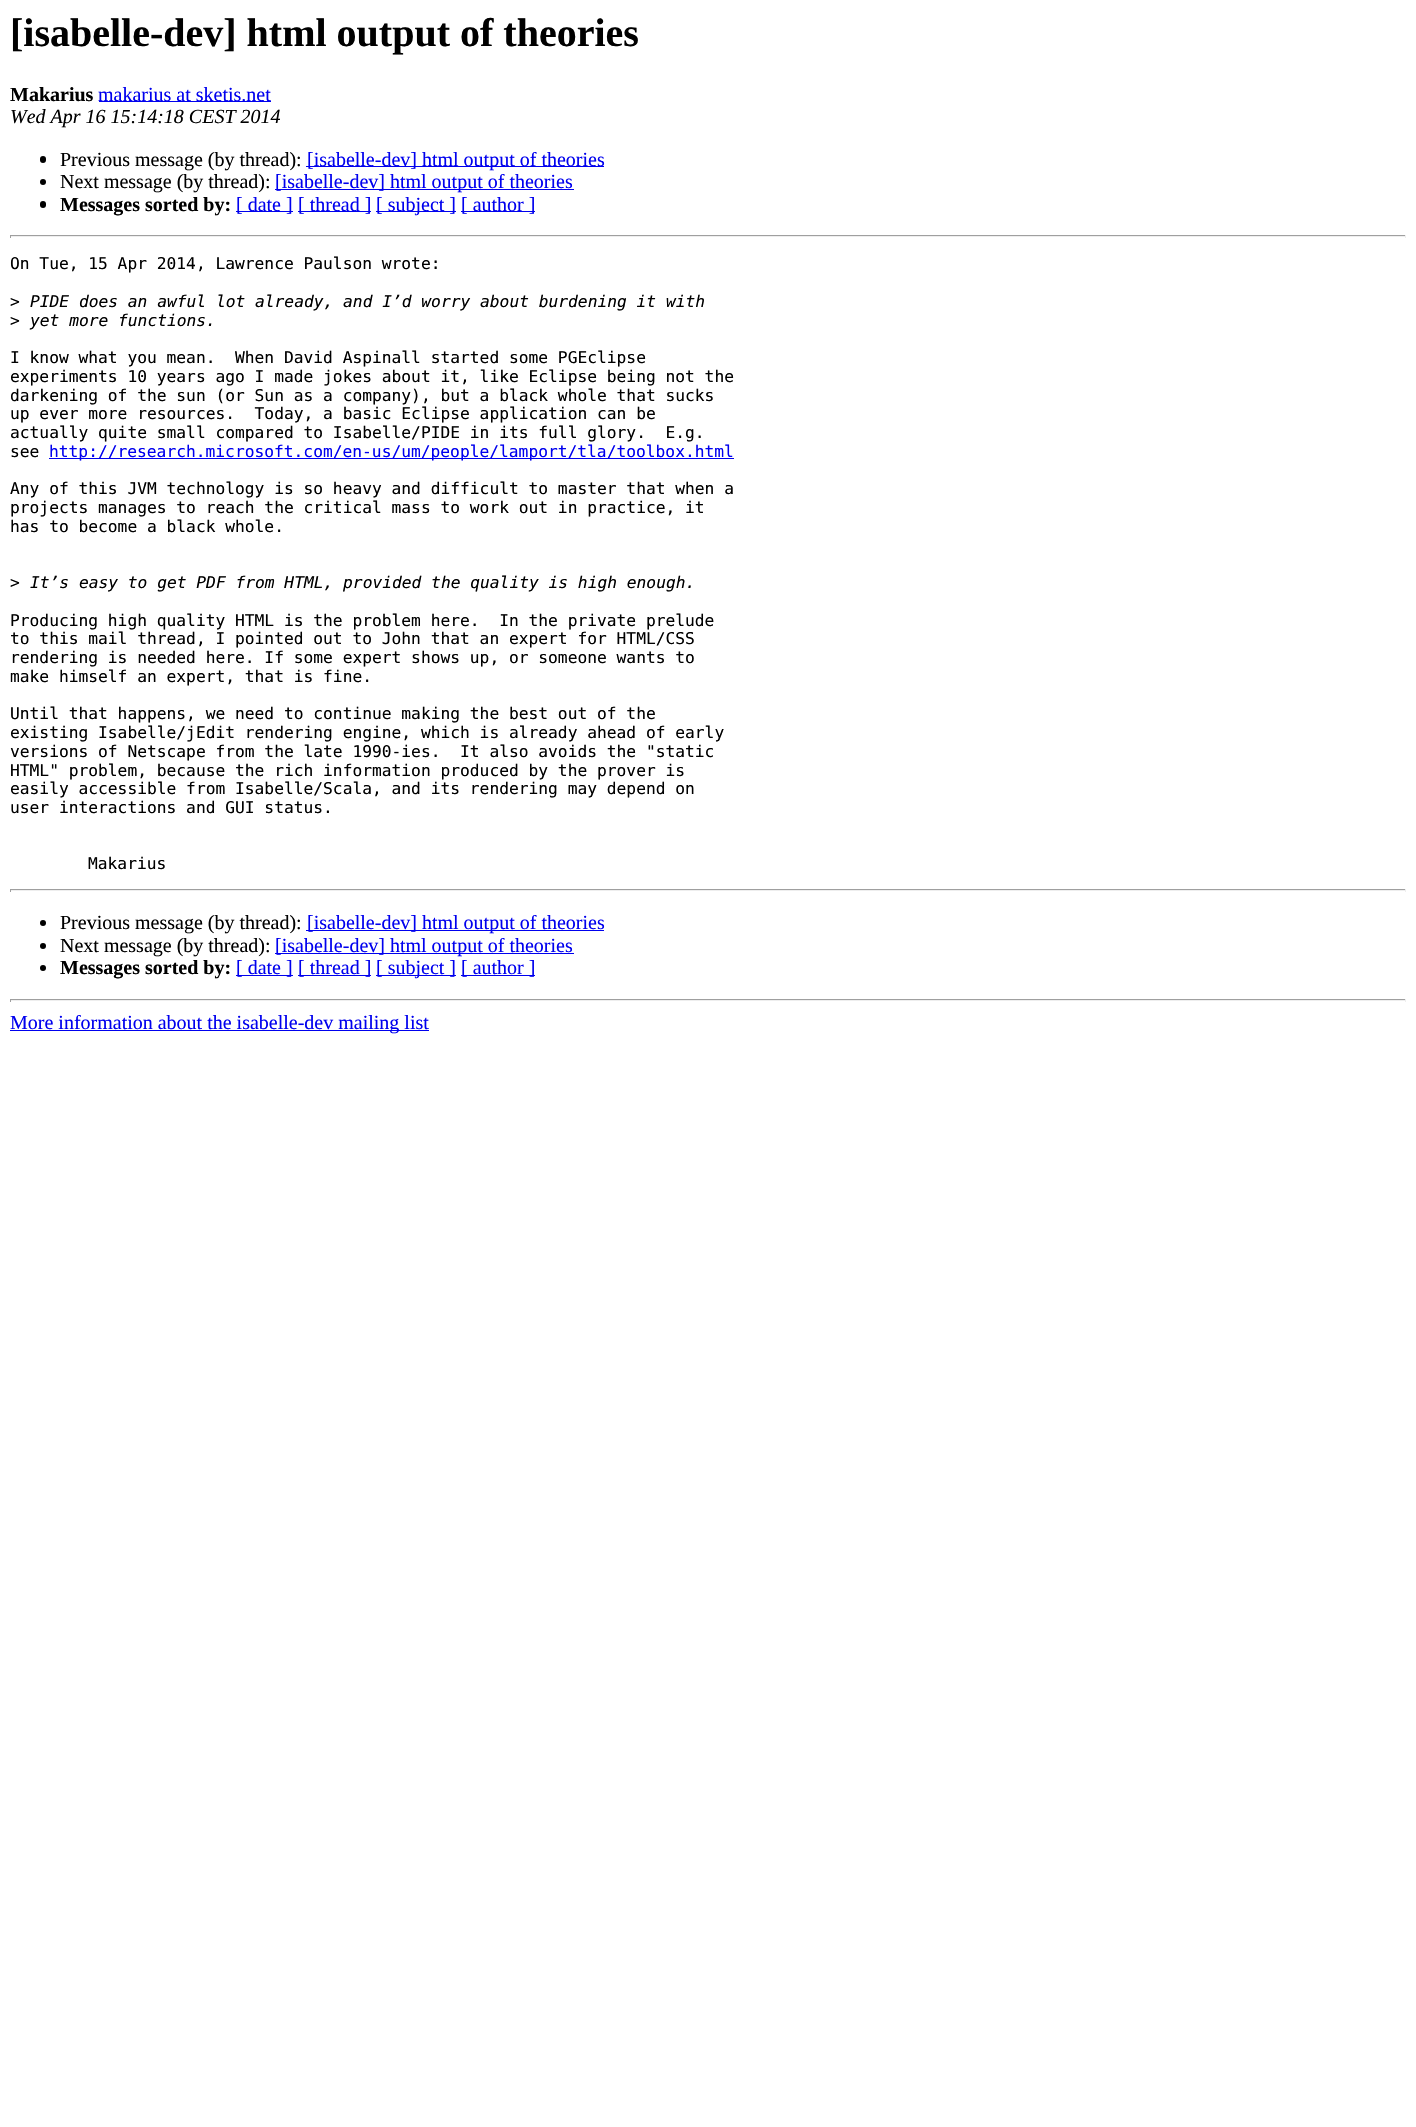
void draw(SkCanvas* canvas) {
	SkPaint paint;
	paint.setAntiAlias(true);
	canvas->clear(0xffffffff);
	SkFont f1(fontMgr->matchFamilyStyle("Liberation Serif", SkFontStyle::Bold()), 40);
	f1.setSubpixel(true);
	paint.setColor(0xff000000);
	canvas->drawString("[isabelle-dev] html output of theories", 10, 46, f1, paint);
	SkFont f2(fontMgr->matchFamilyStyle("Liberation Serif", SkFontStyle::Bold()), 20);
	f2.setSubpixel(true);
	canvas->drawString("Makarius", 10, 101, f2, paint);
	paint.setColor(0xff0000ee);
	canvas->drawRect(SkRect::MakeXYWH(99, 101, 172, 1), paint);
	SkFont f3(fontMgr->matchFamilyStyle("Liberation Serif", SkFontStyle::Normal()), 20);
	f3.setSubpixel(true);
	canvas->drawString("makarius at sketis.net", 98, 101, f3, paint);
	SkFont f4(fontMgr->matchFamilyStyle("Liberation Serif", SkFontStyle::Italic()), 20);
	f4.setSubpixel(true);
	paint.setColor(0xff000000);
	canvas->drawString("Wed Apr 16 15:14:18 CEST 2014", 10, 123, f4, paint);
	canvas->drawRoundRect(SkRect::MakeXYWH(40, 156, 6, 7), 3, 3, paint);
	canvas->drawString("Previous message (by thread):", 60, 166, f3, paint);
	paint.setColor(0xff0000ee);
	canvas->drawRect(SkRect::MakeXYWH(306, 166, 298, 1), paint);
	canvas->drawString("[isabelle-dev] html output of theories", 307, 166, f3, paint);
	paint.setColor(0xff000000);
	canvas->drawCircle(43, 182, 3, paint);
	canvas->drawString("Next message (by thread):", 60, 188, f3, paint);
	paint.setColor(0xff0000ee);
	canvas->drawRect(SkRect::MakeXYWH(275, 189, 299, 1), paint);
	canvas->drawString("[isabelle-dev] html output of theories", 275, 188, f3, paint);
	paint.setColor(0xff000000);
	canvas->drawRoundRect(SkRect::MakeXYWH(40, 201, 6, 7), 3, 3, paint);
	canvas->drawString("Messages sorted by:", 60, 211, f2, paint);
	paint.setColor(0xff0000ee);
	canvas->drawRect(SkRect::MakeXYWH(236, 211, 57, 1), paint);
	canvas->drawString("[ date ]", 236, 211, f3, paint);
	canvas->drawRect(SkRect::MakeXYWH(298, 211, 73, 1), paint);
	canvas->drawString("[ thread ]", 298, 211, f3, paint);
	canvas->drawRect(SkRect::MakeXYWH(376, 211, 80, 1), paint);
	canvas->drawString("[ subject ]", 376, 211, f3, paint);
	canvas->drawRect(SkRect::MakeXYWH(461, 211, 74, 1), paint);
	canvas->drawString("[ author ]", 461, 211, f3, paint);
	paint.setColor(0xff9f9f9f);
	canvas->drawRect(SkRect::MakeXYWH(10, 235, 1396, 1), paint);
	paint.setColor(0xffeeeeee);
	canvas->drawRect(SkRect::MakeXYWH(1405, 235, 1, 3), paint);
	canvas->drawRect(SkRect::MakeXYWH(10, 236, 1396, 1), paint);
	paint.setColor(0xff9f9f9f);
	canvas->drawRect(SkRect::MakeXYWH(10, 235, 1, 3), paint);
	SkFont f5(fontMgr->matchFamilyStyle("DejaVu Sans Mono", SkFontStyle::Normal()), 16.25);
	f5.setSubpixel(true);
	paint.setColor(0xff000000);
	canvas->drawString("On Tue, 15 Apr 2014, Lawrence Paulson wrote:", 10, 269, f5, paint);
	canvas->drawString(">", 10, 307, f5, paint);
	SkFont f6(fontMgr->matchFamilyStyle("DejaVu Sans Mono", SkFontStyle::Italic()), 16.25);
	f6.setSubpixel(true);
	canvas->drawString("PIDE does an awful lot already, and I’d worry about burdening it with", 30, 307, f6, paint);
	canvas->drawString(">", 10, 326, f5, paint);
	canvas->drawString("yet more functions.", 30, 326, f6, paint);
	canvas->drawString("I know what you mean.  When David Aspinall started some PGEclipse", 10, 363, f5, paint);
	canvas->drawString("experiments 10 years ago I made jokes about it, like Eclipse being not the", 10, 382, f5, paint);
	canvas->drawString("darkening of the sun (or Sun as a company), but a black whole that sucks", 10, 401, f5, paint);
	canvas->drawString("up ever more resources.  Today, a basic Eclipse application can be", 10, 419, f5, paint);
	canvas->drawString("actually quite small compared to Isabelle/PIDE in its full glory.  E.g.", 10, 438, f5, paint);
	canvas->drawString("see", 10, 457, f5, paint);
	paint.setColor(0xff0000ee);
	canvas->drawRect(SkRect::MakeXYWH(49, 458, 685, 1), paint);
	canvas->drawString("http://research.microsoft.com/en-us/um/people/lamport/tla/toolbox.html", 49, 457, f5, paint);
	paint.setColor(0xff000000);
	canvas->drawString("Any of this JVM technology is so heavy and difficult to master that when a", 10, 494, f5, paint);
	canvas->drawString("projects manages to reach the critical mass to work out in practice, it", 10, 513, f5, paint);
	canvas->drawString("has to become a black whole.", 10, 532, f5, paint);
	canvas->drawString(">", 10, 588, f5, paint);
	canvas->drawString("It’s easy to get PDF from HTML, provided the quality is high enough.", 30, 588, f6, paint);
	canvas->drawString("Producing high quality HTML is the problem here.  In the private prelude", 10, 626, f5, paint);
	canvas->drawString("to this mail thread, I pointed out to John that an expert for HTML/CSS", 10, 644, f5, paint);
	canvas->drawString("rendering is needed here. If some expert shows up, or someone wants to", 10, 663, f5, paint);
	canvas->drawString("make himself an expert, that is fine.", 10, 682, f5, paint);
	canvas->drawString("Until that happens, we need to continue making the best out of the", 10, 719, f5, paint);
	canvas->drawString("existing Isabelle/jEdit rendering engine, which is already ahead of early", 10, 738, f5, paint);
	canvas->drawString("versions of Netscape from the late 1990-ies.  It also avoids the \"static", 10, 757, f5, paint);
	canvas->drawString("HTML\" problem, because the rich information produced by the prover is", 10, 776, f5, paint);
	canvas->drawString("easily accessible from Isabelle/Scala, and its rendering may depend on", 10, 794, f5, paint);
	canvas->drawString("user interactions and GUI status.", 10, 813, f5, paint);
	canvas->drawString("Makarius", 88, 869, f5, paint);
	paint.setColor(0xff9f9f9f);
	canvas->drawRect(SkRect::MakeXYWH(10, 889, 1396, 1), paint);
	paint.setColor(0xffeeeeee);
	canvas->drawRect(SkRect::MakeXYWH(1405, 889, 1, 3), paint);
	canvas->drawRect(SkRect::MakeXYWH(10, 890, 1396, 1), paint);
	paint.setColor(0xff9f9f9f);
	canvas->drawRect(SkRect::MakeXYWH(10, 889, 1, 3), paint);
	paint.setColor(0xff000000);
	canvas->drawCircle(43, 923, 3, paint);
	canvas->drawString("Previous message (by thread):", 60, 929, f3, paint);
	paint.setColor(0xff0000ee);
	canvas->drawRect(SkRect::MakeXYWH(306, 930, 298, 1), paint);
	canvas->drawString("[isabelle-dev] html output of theories", 307, 929, f3, paint);
	paint.setColor(0xff000000);
	canvas->drawCircle(43, 946, 3, paint);
	canvas->drawString("Next message (by thread):", 60, 952, f3, paint);
	paint.setColor(0xff0000ee);
	canvas->drawRect(SkRect::MakeXYWH(275, 953, 299, 1), paint);
	canvas->drawString("[isabelle-dev] html output of theories", 275, 952, f3, paint);
	paint.setColor(0xff000000);
	canvas->drawCircle(43, 968, 3, paint);
	canvas->drawString("Messages sorted by:", 60, 974, f2, paint);
	paint.setColor(0xff0000ee);
	canvas->drawRect(SkRect::MakeXYWH(236, 975, 57, 1), paint);
	canvas->drawString("[ date ]", 236, 974, f3, paint);
	canvas->drawRect(SkRect::MakeXYWH(298, 975, 73, 1), paint);
	canvas->drawString("[ thread ]", 298, 974, f3, paint);
	canvas->drawRect(SkRect::MakeXYWH(376, 975, 80, 1), paint);
	canvas->drawString("[ subject ]", 376, 974, f3, paint);
	canvas->drawRect(SkRect::MakeXYWH(461, 975, 74, 1), paint);
	canvas->drawString("[ author ]", 461, 974, f3, paint);
	paint.setColor(0xff9f9f9f);
	canvas->drawRect(SkRect::MakeXYWH(10, 999, 1396, 1), paint);
	paint.setColor(0xffeeeeee);
	canvas->drawRect(SkRect::MakeXYWH(1405, 999, 1, 3), paint);
	canvas->drawRect(SkRect::MakeXYWH(10, 1000, 1396, 1), paint);
	paint.setColor(0xff9f9f9f);
	canvas->drawRect(SkRect::MakeXYWH(10, 999, 1, 3), paint);
	paint.setColor(0xff0000ee);
	canvas->drawRect(SkRect::MakeXYWH(10, 1030, 419, 1), paint);
	canvas->drawString("More information about the isabelle-dev mailing list", 10, 1029, f3, paint);
}
